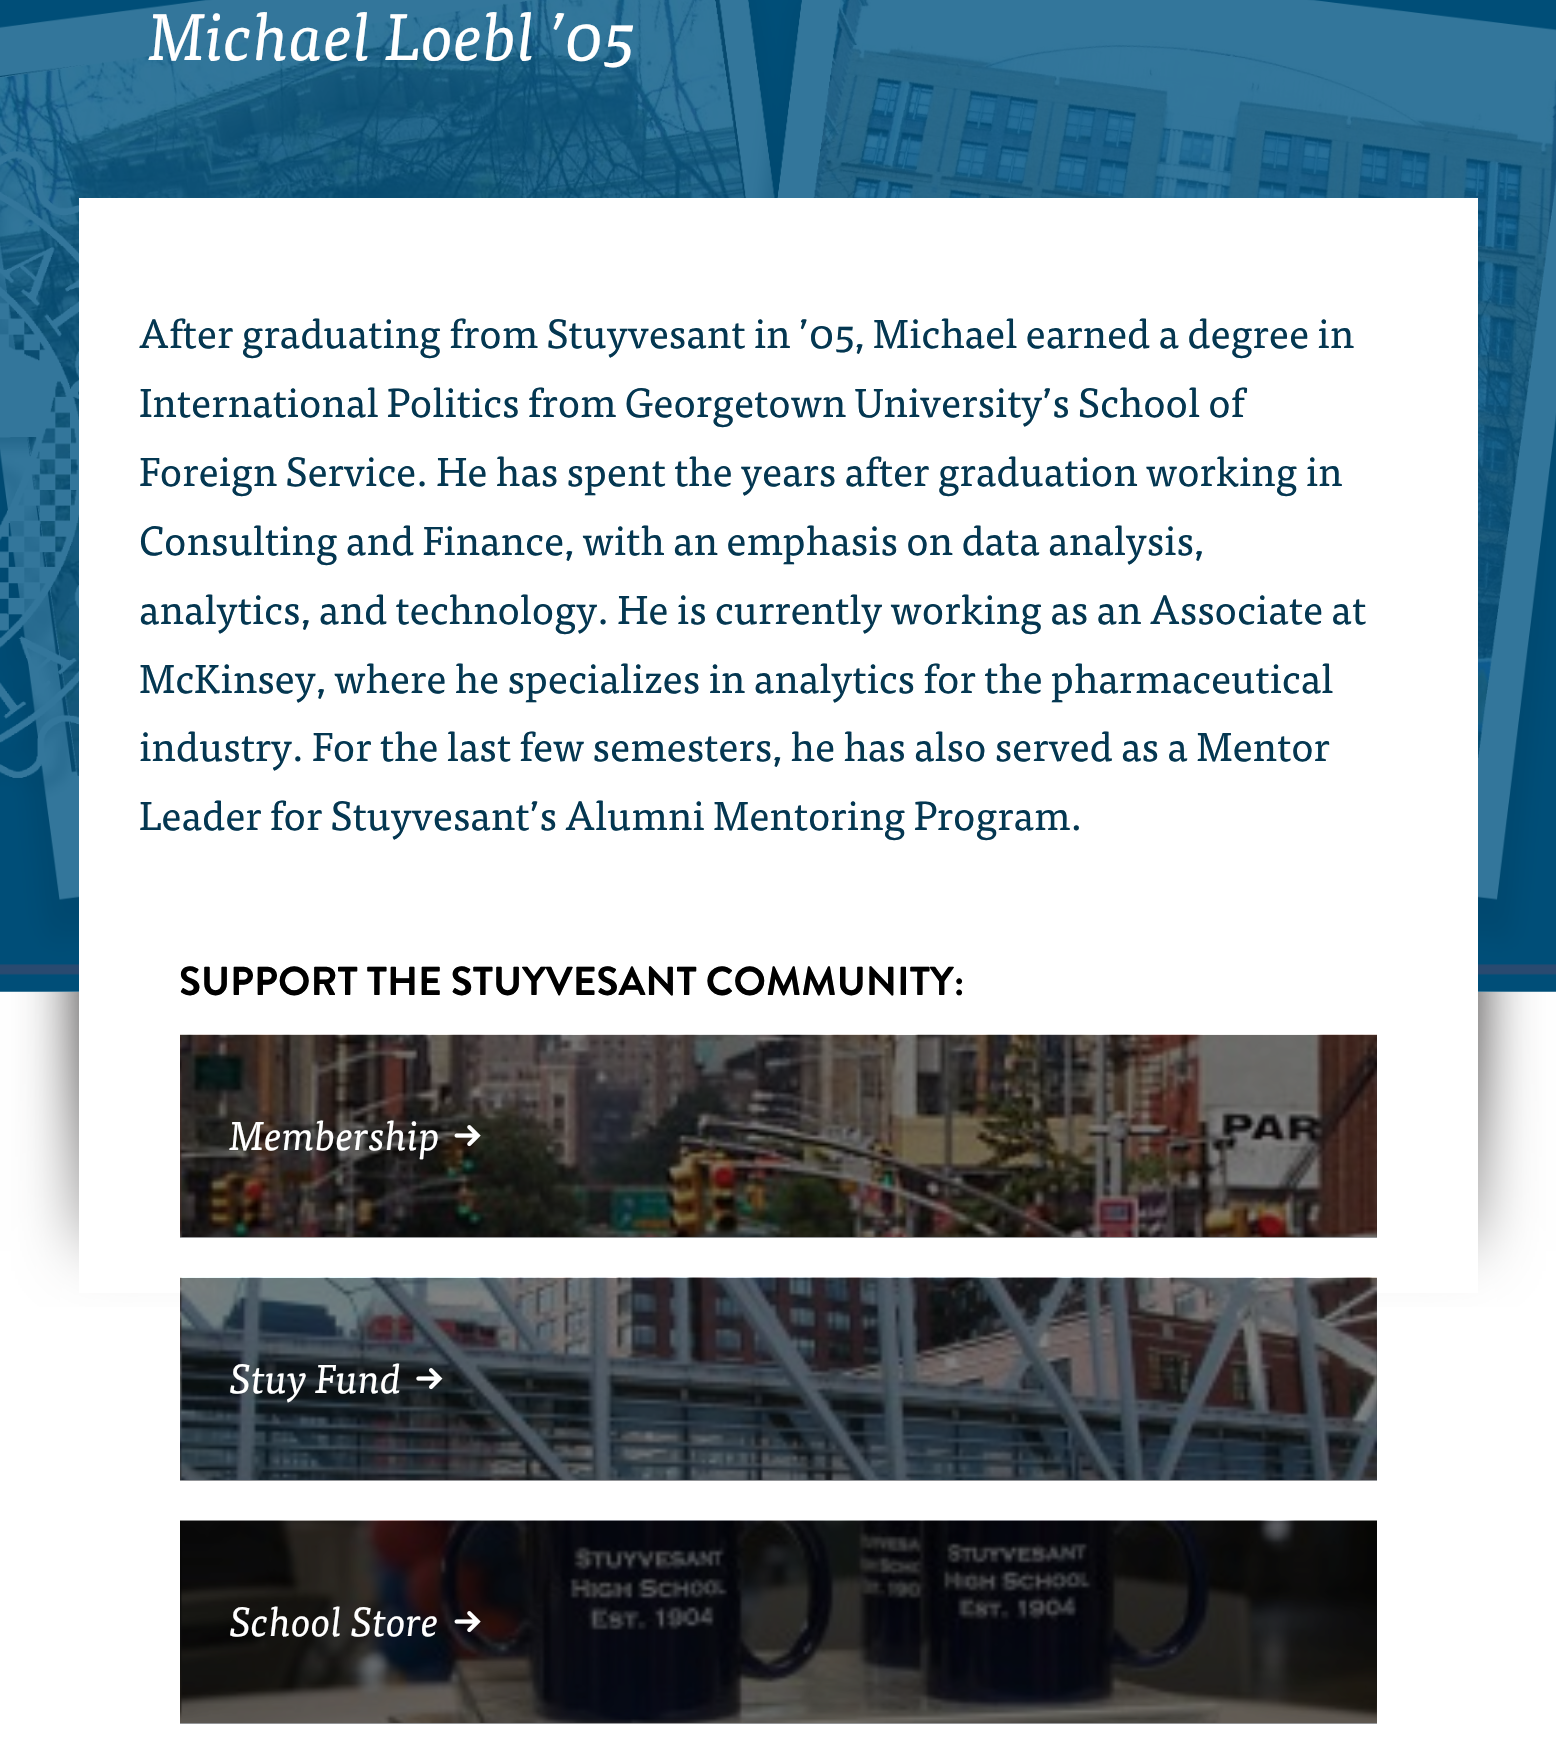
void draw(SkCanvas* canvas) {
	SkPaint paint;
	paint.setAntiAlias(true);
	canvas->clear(0xffffffff);
	canvas->drawImageRect(SkImages::DeferredFromEncodedData(SkData::MakeFromFileName("img1.png")), SkRect::MakeXYWH(0, 0, 1556, 992), SkSamplingOptions());
	canvas->save();
	canvas->clipRect(SkRect::MakeXYWH(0, 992, 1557, 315));
	paint.setColor(0xff2b2828);
	paint.setMaskFilter(SkMaskFilter::MakeBlur(kNormal_SkBlurStyle, 28));
	canvas->drawRect(SkRect::MakeXYWH(79, 936, 1399, 315), paint);
	paint.setMaskFilter(nullptr);
	paint.setColor(0xffffffff);
	paint.setMaskFilter(SkMaskFilter::MakeBlur(kNormal_SkBlurStyle, 112.5));
	canvas->drawRect(SkRect::MakeXYWH(-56, 1172, 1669, 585), paint);
	paint.setMaskFilter(nullptr);
	canvas->restore();
	SkFont f1(fontMgr->matchFamilyStyle("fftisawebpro", SkFontStyle::Italic()), 66);
	f1.setSubpixel(true);
	canvas->drawString("Michael Loebl ’05", 148, 60, f1, paint);
	canvas->drawRect(SkRect::MakeXYWH(79, 198, 1399, 1095), paint);
	SkFont f2(fontMgr->matchFamilyStyle("fftisawebpro", SkFontStyle::Normal()), 40.5);
	f2.setSubpixel(true);
	paint.setColor(0xff043751);
	canvas->drawString("After graduating from Stuyvesant in ’05, Michael earned a degree in", 139, 348, f2, paint);
	canvas->drawString("International Politics from Georgetown University’s School of", 139, 417, f2, paint);
	canvas->drawString("Foreign Service. He has spent the years after graduation working in", 139, 486, f2, paint);
	canvas->drawString("Consulting and Finance, with an emphasis on data analysis,", 139, 555, f2, paint);
	canvas->drawString("analytics, and technology. He is currently working as an Associate at", 139, 624, f2, paint);
	canvas->drawString("McKinsey, where he specializes in analytics for the pharmaceutical", 139, 693, f2, paint);
	canvas->drawString("industry. For the last few semesters, he has also served as a Mentor", 139, 761, f2, paint);
	canvas->drawString("Leader for Stuyvesant’s Alumni Mentoring Program.", 139, 830, f2, paint);
	SkFont f3(fontMgr->matchFamilyStyle("Brandon Grotesque", SkFontStyle::Bold()), 40.5);
	f3.setSubpixel(true);
	paint.setColor(0xff000000);
	canvas->drawString("SUPPORT THE STUYVESANT COMMUNITY:", 179, 995, f3, paint);
	paint.setColor(0xff939598);
	canvas->drawRect(SkRect::MakeXYWH(180, 1237, 1197, 1), paint);
	canvas->drawImageRect(SkImages::DeferredFromEncodedData(SkData::MakeFromFileName("img2.png")), SkRect::MakeXYWH(180, 1034, 1197, 203), SkSamplingOptions());
	SkFont f4(fontMgr->matchFamilyStyle("fftisawebpro", SkFontStyle::Italic()), 40.5);
	f4.setSubpixel(true);
	paint.setColor(0xffffffff);
	canvas->drawString("Membership", 229, 1150, f4, paint);
	canvas->drawImageRect(SkImages::DeferredFromEncodedData(SkData::MakeFromFileName("img3.png")), SkRect::MakeXYWH(454, 1125, 27, 22), SkSamplingOptions());
	paint.setColor(0xff939598);
	canvas->drawRect(SkRect::MakeXYWH(180, 1480, 1197, 1), paint);
	canvas->drawImageRect(SkImages::DeferredFromEncodedData(SkData::MakeFromFileName("img4.png")), SkRect::MakeXYWH(180, 1277, 1197, 203), SkSamplingOptions());
	paint.setColor(0xffffffff);
	canvas->drawString("Stuy Fund", 229, 1393, f4, paint);
	canvas->drawImageRect(SkImages::DeferredFromEncodedData(SkData::MakeFromFileName("img5.png")), SkRect::MakeXYWH(416, 1368, 27, 22), SkSamplingOptions());
	paint.setColor(0xff939598);
	canvas->drawRect(SkRect::MakeXYWH(180, 1723, 1197, 1), paint);
	canvas->drawImageRect(SkImages::DeferredFromEncodedData(SkData::MakeFromFileName("img6.png")), SkRect::MakeXYWH(180, 1520, 1197, 203), SkSamplingOptions());
	paint.setColor(0xffffffff);
	canvas->drawString("School Store", 229, 1636, f4, paint);
	canvas->drawImageRect(SkImages::DeferredFromEncodedData(SkData::MakeFromFileName("img7.png")), SkRect::MakeXYWH(454, 1611, 27, 22), SkSamplingOptions());
}
